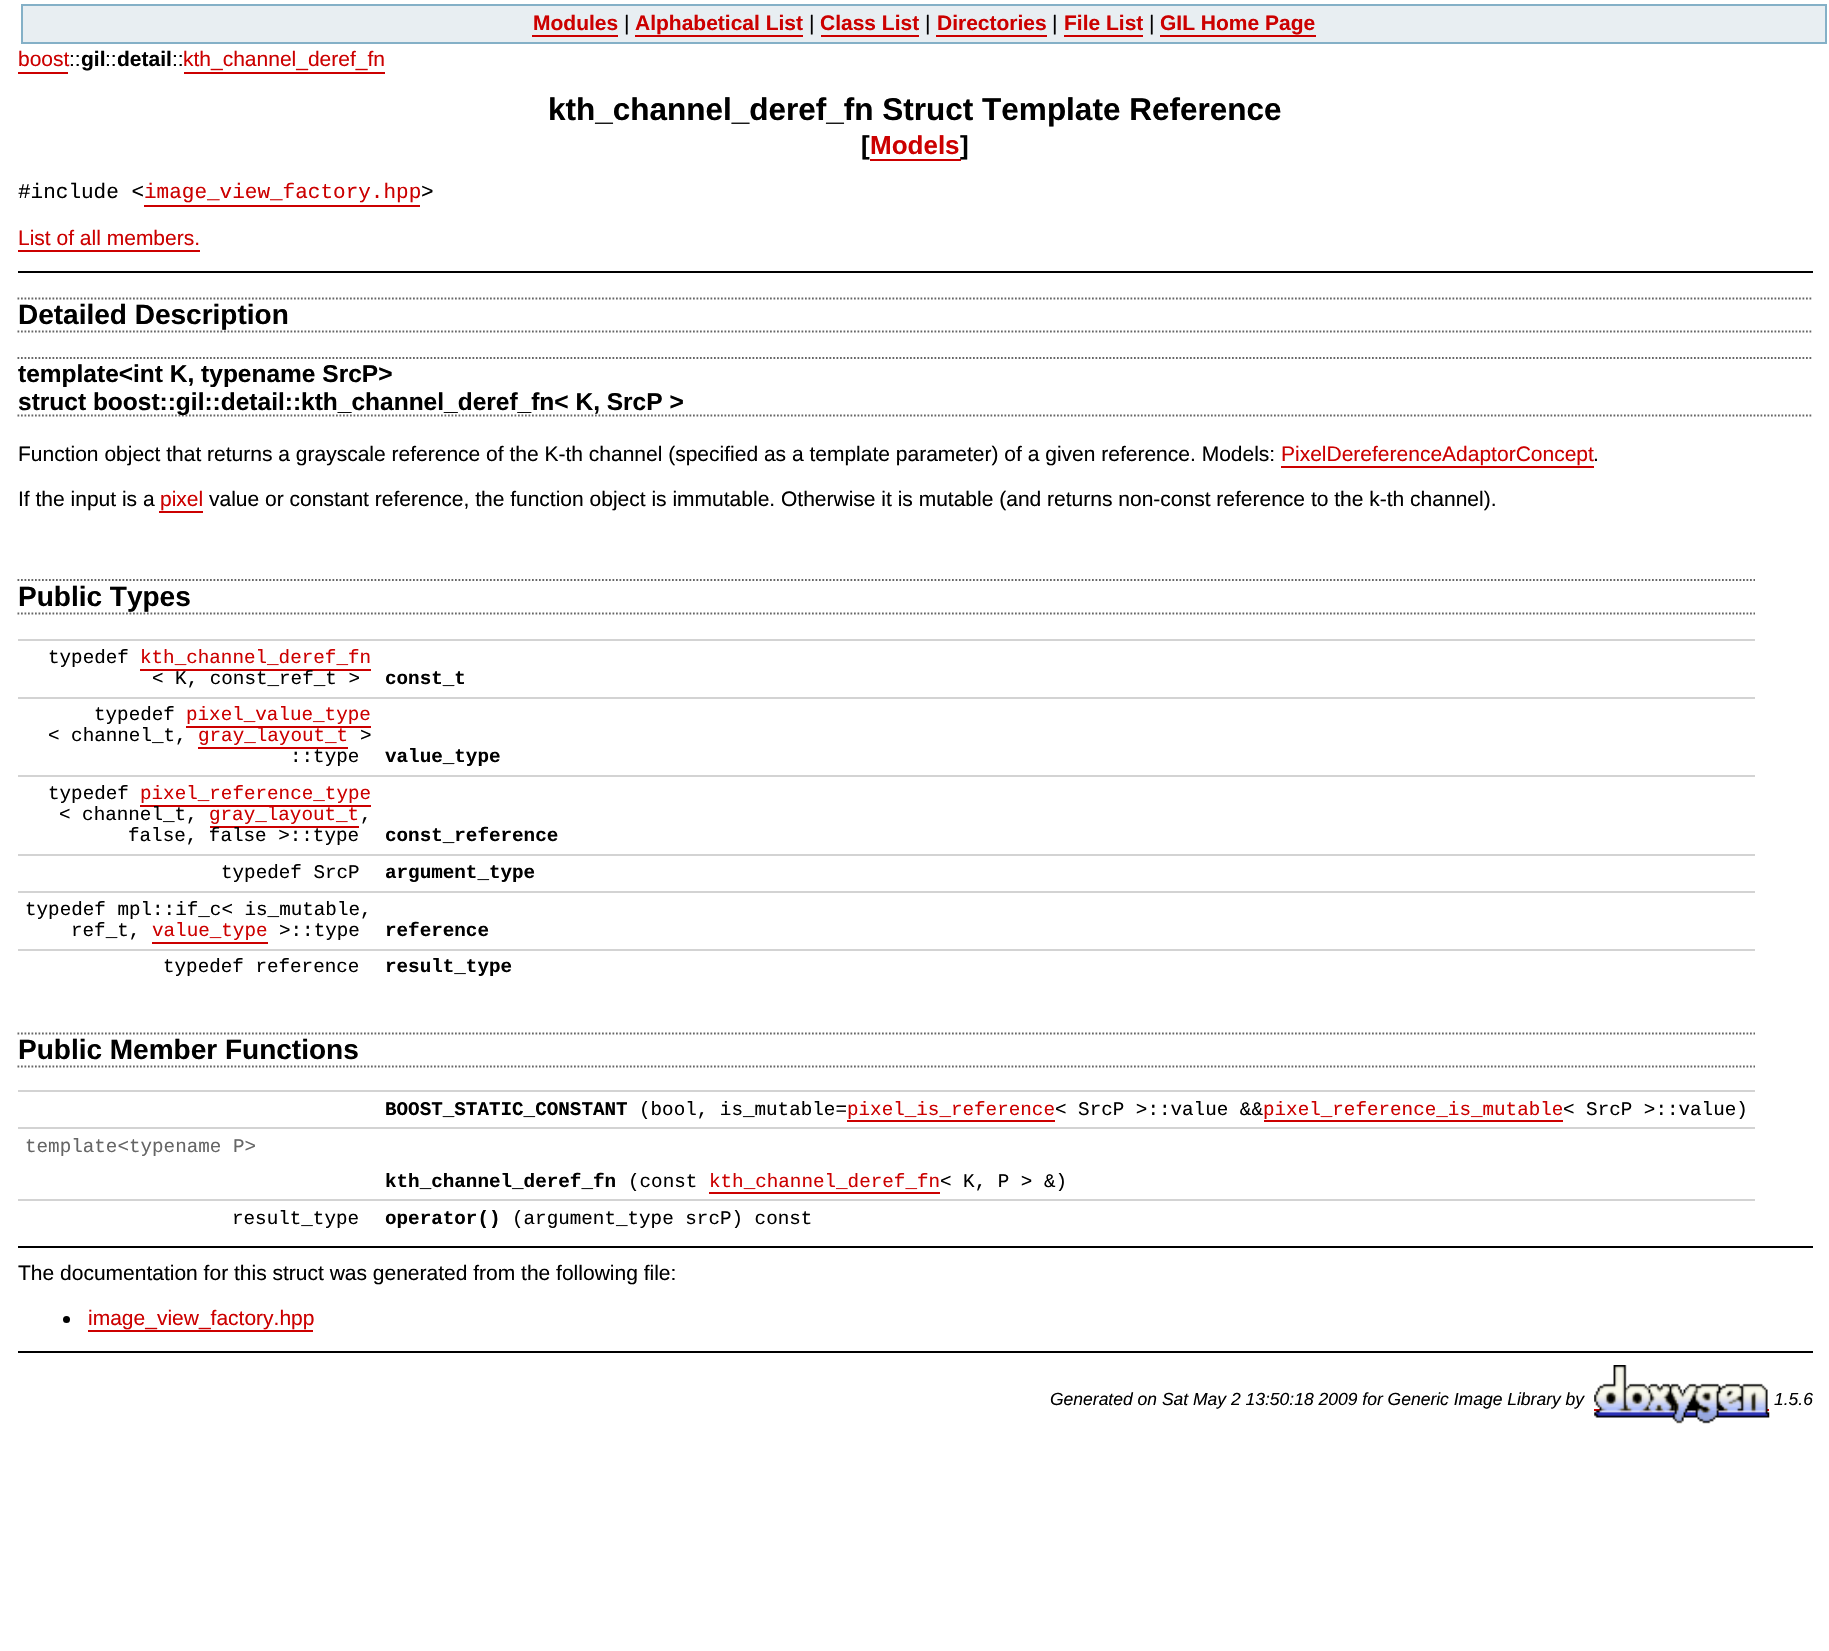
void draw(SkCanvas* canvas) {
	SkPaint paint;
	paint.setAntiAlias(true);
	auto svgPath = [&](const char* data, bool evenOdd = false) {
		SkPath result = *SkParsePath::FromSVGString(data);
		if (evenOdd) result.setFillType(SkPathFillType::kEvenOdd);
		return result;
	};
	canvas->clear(0xffffffff);
	paint.setColor(0xffe8eef2);
	canvas->drawRect(SkRect::MakeXYWH(22, 5, 1804, 38), paint);
	paint.setStroke(true);
	paint.setStrokeWidth(2);
	paint.setColor(0xff84b0c7);
	canvas->drawRect(SkRect::MakeXYWH(22, 5, 1804, 38), paint);
	SkFont f1(fontMgr->matchFamilyStyle("Liberation Sans", SkFontStyle::Bold()), 21);
	f1.setSubpixel(true);
	paint.setStroke(false);
	paint.setColor(0xffcc0000);
	canvas->drawString("Modules", 533, 30, f1, paint);
	canvas->drawRect(SkRect::MakeXYWH(532, 35, 86, 2), paint);
	SkFont f2(fontMgr->matchFamilyStyle("Liberation Sans", SkFontStyle::Normal()), 21);
	f2.setSubpixel(true);
	paint.setColor(0xff000000);
	canvas->drawString("|", 624, 30, f2, paint);
	paint.setColor(0xffcc0000);
	canvas->drawString("Alphabetical List", 635, 30, f1, paint);
	canvas->drawRect(SkRect::MakeXYWH(635, 35, 168, 2), paint);
	paint.setColor(0xff000000);
	canvas->drawString("|", 809, 30, f2, paint);
	paint.setColor(0xffcc0000);
	canvas->drawString("Class List", 820, 30, f1, paint);
	canvas->drawRect(SkRect::MakeXYWH(821, 35, 98, 2), paint);
	paint.setColor(0xff000000);
	canvas->drawString("|", 925, 30, f2, paint);
	paint.setColor(0xffcc0000);
	canvas->drawString("Directories", 937, 30, f1, paint);
	canvas->drawRect(SkRect::MakeXYWH(936, 35, 111, 2), paint);
	paint.setColor(0xff000000);
	canvas->drawString("|", 1052, 30, f2, paint);
	paint.setColor(0xffcc0000);
	canvas->drawString("File List", 1064, 30, f1, paint);
	canvas->drawRect(SkRect::MakeXYWH(1064, 35, 79, 2), paint);
	paint.setColor(0xff000000);
	canvas->drawString("|", 1149, 30, f2, paint);
	paint.setColor(0xffcc0000);
	canvas->drawString("GIL Home Page", 1160, 30, f1, paint);
	canvas->drawRect(SkRect::MakeXYWH(1160, 35, 156, 2), paint);
	canvas->drawString("boost", 18, 66, f2, paint);
	canvas->drawRect(SkRect::MakeXYWH(18, 72, 50, 2), paint);
	paint.setColor(0xff000000);
	canvas->drawString("::", 69, 66, f2, paint);
	canvas->drawString("gil", 81, 66, f1, paint);
	canvas->drawString("::", 105, 66, f2, paint);
	canvas->drawString("detail", 117, 66, f1, paint);
	canvas->drawString("::", 172, 66, f2, paint);
	paint.setColor(0xffcc0000);
	canvas->drawString("kth_channel_deref_fn", 183, 66, f2, paint);
	canvas->drawRect(SkRect::MakeXYWH(184, 72, 201, 2), paint);
	SkFont f3(fontMgr->matchFamilyStyle("Liberation Sans", SkFontStyle::Bold()), 31.5);
	f3.setSubpixel(true);
	paint.setColor(0xff000000);
	canvas->drawString("kth_channel_deref_fn Struct Template Reference", 548, 120, f3, paint);
	SkFont f4(fontMgr->matchFamilyStyle("Liberation Sans", SkFontStyle::Bold()), 26);
	f4.setSubpixel(true);
	canvas->drawString("[", 861, 154, f4, paint);
	paint.setColor(0xffcc0000);
	canvas->drawRect(SkRect::MakeXYWH(870, 159, 91, 2), paint);
	canvas->drawString("Models", 870, 154, f4, paint);
	paint.setColor(0xff000000);
	canvas->drawString("]", 960, 154, f4, paint);
	SkFont f5(fontMgr->matchFamilyStyle("Liberation Mono", SkFontStyle::Normal()), 21);
	f5.setSubpixel(true);
	canvas->drawString("#include <", 18, 198, f5, paint);
	paint.setColor(0xffcc0000);
	canvas->drawString("image_view_factory.hpp", 144, 198, f5, paint);
	canvas->drawRect(SkRect::MakeXYWH(144, 205, 276, 2), paint);
	paint.setColor(0xff000000);
	canvas->drawString(">", 421, 198, f5, paint);
	paint.setColor(0xffcc0000);
	canvas->drawString("List of all members.", 18, 245, f2, paint);
	canvas->drawRect(SkRect::MakeXYWH(18, 250, 182, 2), paint);
	paint.setColor(0xff000000);
	canvas->drawRect(SkRect::MakeXYWH(18, 271, 1795, 2), paint);
	paint.setStroke(true);
	paint.setStrokeWidth(1.8);
	paint.setColor(0xff666666);
	paint.setPathEffect(SkDashPathEffect::Make({{1.75f, 1.75f}}, 0));
	canvas->drawPath(svgPath("M17.5 298.5H1813"), paint);
	paint.setPathEffect(nullptr);
	paint.setPathEffect(SkDashPathEffect::Make({{1.75f, 1.75f}}, 0));
	canvas->drawPath(svgPath("M17.5 331.5H1813"), paint);
	paint.setPathEffect(nullptr);
	SkFont f6(fontMgr->matchFamilyStyle("Liberation Sans", SkFontStyle::Bold()), 28);
	f6.setSubpixel(true);
	paint.setStroke(false);
	paint.setColor(0xff000000);
	canvas->drawString("Detailed Description", 18, 324, f6, paint);
	paint.setStroke(true);
	paint.setColor(0xff666666);
	paint.setPathEffect(SkDashPathEffect::Make({{1.75f, 1.75f}}, 0));
	canvas->drawPath(svgPath("M17.5 358H1813"), paint);
	paint.setPathEffect(nullptr);
	paint.setPathEffect(SkDashPathEffect::Make({{1.75f, 1.75f}}, 0));
	canvas->drawPath(svgPath("M17.5 415.5H1813"), paint);
	paint.setPathEffect(nullptr);
	SkFont f7(fontMgr->matchFamilyStyle("Liberation Sans", SkFontStyle::Bold()), 24.5);
	f7.setSubpixel(true);
	paint.setStroke(false);
	paint.setColor(0xff000000);
	canvas->drawString("template<int K, typename SrcP>", 18, 382, f7, paint);
	canvas->drawString("struct boost::gil::detail::kth_channel_deref_fn< K, SrcP >", 18, 410, f7, paint);
	canvas->drawString("Function object that returns a grayscale reference of the K-th channel (specified as a template parameter) of a given reference. Models:", 18, 461, f2, paint);
	paint.setColor(0xffcc0000);
	canvas->drawString("PixelDereferenceAdaptorConcept", 1281, 461, f2, paint);
	canvas->drawRect(SkRect::MakeXYWH(1281, 466, 313, 2), paint);
	paint.setColor(0xff000000);
	canvas->drawString(".", 1593, 461, f2, paint);
	canvas->drawString("If the input is a", 18, 506, f2, paint);
	paint.setColor(0xffcc0000);
	canvas->drawString("pixel", 160, 506, f2, paint);
	canvas->drawRect(SkRect::MakeXYWH(159, 511, 44, 2), paint);
	paint.setColor(0xff000000);
	canvas->drawString("value or constant reference, the function object is immutable. Otherwise it is mutable (and returns non-const reference to the k-th channel).", 209, 506, f2, paint);
	paint.setStroke(true);
	paint.setColor(0xff666666);
	paint.setPathEffect(SkDashPathEffect::Make({{1.75f, 1.75f}}, 0));
	canvas->drawPath(svgPath("M17.5 580H1755"), paint);
	paint.setPathEffect(nullptr);
	paint.setPathEffect(SkDashPathEffect::Make({{1.75f, 1.75f}}, 0));
	canvas->drawPath(svgPath("M17.5 613.5H1755"), paint);
	paint.setPathEffect(nullptr);
	paint.setStroke(false);
	paint.setColor(0xff000000);
	canvas->drawString("Public Types", 18, 606, f6, paint);
	paint.setColor(0xffd3d3d3);
	canvas->drawRect(SkRect::MakeXYWH(18, 639, 1737, 2), paint);
	SkFont f8(fontMgr->matchFamilyStyle("Liberation Mono", SkFontStyle::Normal()), 19.25);
	f8.setSubpixel(true);
	paint.setColor(0xff000000);
	canvas->drawString("typedef", 48, 663, f8, paint);
	paint.setColor(0xffcc0000);
	canvas->drawString("kth_channel_deref_fn", 140, 663, f8, paint);
	canvas->drawRect(SkRect::MakeXYWH(140, 669, 231, 2), paint);
	paint.setColor(0xff000000);
	canvas->drawString("< K, const_ref_t >", 152, 684, f8, paint);
	SkFont f9(fontMgr->matchFamilyStyle("Liberation Mono", SkFontStyle::Bold()), 19.25);
	f9.setSubpixel(true);
	canvas->drawString("const_t", 385, 684, f9, paint);
	paint.setColor(0xffd3d3d3);
	canvas->drawRect(SkRect::MakeXYWH(18, 697, 1737, 2), paint);
	paint.setColor(0xff000000);
	canvas->drawString("typedef", 94, 720, f8, paint);
	paint.setColor(0xffcc0000);
	canvas->drawString("pixel_value_type", 186, 720, f8, paint);
	canvas->drawRect(SkRect::MakeXYWH(186, 726, 185, 2), paint);
	paint.setColor(0xff000000);
	canvas->drawString("< channel_t,", 48, 741, f8, paint);
	paint.setColor(0xffcc0000);
	canvas->drawString("gray_layout_t", 198, 741, f8, paint);
	canvas->drawRect(SkRect::MakeXYWH(198, 747, 150, 2), paint);
	paint.setColor(0xff000000);
	canvas->drawString(">", 360, 741, f8, paint);
	canvas->drawString("::type", 290, 762, f8, paint);
	canvas->drawString("value_type", 385, 762, f9, paint);
	paint.setColor(0xffd3d3d3);
	canvas->drawRect(SkRect::MakeXYWH(18, 775, 1737, 2), paint);
	paint.setColor(0xff000000);
	canvas->drawString("typedef", 48, 799, f8, paint);
	paint.setColor(0xffcc0000);
	canvas->drawString("pixel_reference_type", 140, 799, f8, paint);
	canvas->drawRect(SkRect::MakeXYWH(140, 805, 231, 2), paint);
	paint.setColor(0xff000000);
	canvas->drawString("< channel_t,", 59, 820, f8, paint);
	paint.setColor(0xffcc0000);
	canvas->drawString("gray_layout_t", 209, 820, f8, paint);
	canvas->drawRect(SkRect::MakeXYWH(210, 826, 149, 2), paint);
	paint.setColor(0xff000000);
	canvas->drawString(",", 360, 820, f8, paint);
	canvas->drawString("false, false >::type", 128, 841, f8, paint);
	canvas->drawString("const_reference", 385, 841, f9, paint);
	paint.setColor(0xffd3d3d3);
	canvas->drawRect(SkRect::MakeXYWH(18, 854, 1737, 2), paint);
	paint.setColor(0xff000000);
	canvas->drawString("typedef SrcP", 221, 878, f8, paint);
	canvas->drawString("argument_type", 385, 878, f9, paint);
	paint.setColor(0xffd3d3d3);
	canvas->drawRect(SkRect::MakeXYWH(18, 891, 1737, 2), paint);
	paint.setColor(0xff000000);
	canvas->drawString("typedef mpl::if_c< is_mutable,", 25, 915, f8, paint);
	canvas->drawString("ref_t,", 71, 936, f8, paint);
	paint.setColor(0xffcc0000);
	canvas->drawString("value_type", 152, 936, f8, paint);
	canvas->drawRect(SkRect::MakeXYWH(152, 942, 116, 2), paint);
	paint.setColor(0xff000000);
	canvas->drawString(">::type", 279, 936, f8, paint);
	canvas->drawString("reference", 385, 936, f9, paint);
	paint.setColor(0xffd3d3d3);
	canvas->drawRect(SkRect::MakeXYWH(18, 949, 1737, 2), paint);
	paint.setColor(0xff000000);
	canvas->drawString("typedef reference", 163, 972, f8, paint);
	canvas->drawString("result_type", 385, 972, f9, paint);
	paint.setStroke(true);
	paint.setColor(0xff666666);
	paint.setPathEffect(SkDashPathEffect::Make({{1.75f, 1.75f}}, 0));
	canvas->drawPath(svgPath("M17.5 1033.5H1755"), paint);
	paint.setPathEffect(nullptr);
	paint.setPathEffect(SkDashPathEffect::Make({{1.75f, 1.75f}}, 0));
	canvas->drawPath(svgPath("M17.5 1066.5H1755"), paint);
	paint.setPathEffect(nullptr);
	paint.setStroke(false);
	paint.setColor(0xff000000);
	canvas->drawString("Public Member Functions", 18, 1059, f6, paint);
	paint.setColor(0xffd3d3d3);
	canvas->drawRect(SkRect::MakeXYWH(18, 1090, 1737, 2), paint);
	paint.setColor(0xff000000);
	canvas->drawString("BOOST_STATIC_CONSTANT", 385, 1115, f9, paint);
	canvas->drawString("(bool, is_mutable=", 639, 1115, f8, paint);
	paint.setColor(0xffcc0000);
	canvas->drawString("pixel_is_reference", 847, 1115, f8, paint);
	canvas->drawRect(SkRect::MakeXYWH(847, 1120, 208, 2), paint);
	paint.setColor(0xff000000);
	canvas->drawString("< SrcP >::value &&", 1055, 1115, f8, paint);
	paint.setColor(0xffcc0000);
	canvas->drawString("pixel_reference_is_mutable", 1263, 1115, f8, paint);
	canvas->drawRect(SkRect::MakeXYWH(1264, 1120, 299, 2), paint);
	paint.setColor(0xff000000);
	canvas->drawString("< SrcP >::value)", 1563, 1115, f8, paint);
	paint.setColor(0xffd3d3d3);
	canvas->drawRect(SkRect::MakeXYWH(18, 1127, 1737, 2), paint);
	paint.setColor(0xff666666);
	canvas->drawString("template<typename P>", 25, 1152, f8, paint);
	paint.setColor(0xff000000);
	canvas->drawString("kth_channel_deref_fn", 385, 1187, f9, paint);
	canvas->drawString("(const", 628, 1187, f8, paint);
	paint.setColor(0xffcc0000);
	canvas->drawString("kth_channel_deref_fn", 709, 1187, f8, paint);
	canvas->drawRect(SkRect::MakeXYWH(709, 1192, 231, 2), paint);
	paint.setColor(0xff000000);
	canvas->drawString("< K, P > &)", 940, 1187, f8, paint);
	paint.setColor(0xffd3d3d3);
	canvas->drawRect(SkRect::MakeXYWH(18, 1199, 1737, 2), paint);
	paint.setColor(0xff000000);
	canvas->drawString("result_type", 232, 1224, f8, paint);
	canvas->drawString("operator()", 385, 1224, f9, paint);
	canvas->drawString("(argument_type srcP) const", 512, 1224, f8, paint);
	canvas->drawRect(SkRect::MakeXYWH(18, 1246, 1795, 2), paint);
	canvas->drawString("The documentation for this struct was generated from the following file:", 18, 1280, f2, paint);
	canvas->drawCircle(66.5, 1319.5, 3.5, paint);
	paint.setColor(0xffcc0000);
	canvas->drawString("image_view_factory.hpp", 88, 1325, f2, paint);
	canvas->drawRect(SkRect::MakeXYWH(88, 1330, 225, 2), paint);
	paint.setColor(0xff000000);
	canvas->drawRect(SkRect::MakeXYWH(18, 1351, 1795, 2), paint);
	SkFont f10(fontMgr->matchFamilyStyle("Liberation Sans", SkFontStyle::Italic()), 17.5);
	f10.setSubpixel(true);
	canvas->drawString("Generated on Sat May 2 13:50:18 2009 for Generic Image Library by", 1050, 1405, f10, paint);
	paint.setColor(0xffcc0000);
	canvas->drawRect(SkRect::MakeXYWH(1594, 1409, 175, 2), paint);
	canvas->drawImageRect(SkImages::DeferredFromEncodedData(SkData::MakeFromFileName("img1.png")), SkRect::MakeXYWH(1594, 1365, 176, 59), SkSamplingOptions());
	paint.setColor(0xff000000);
	canvas->drawString("1.5.6", 1774, 1405, f10, paint);
}
